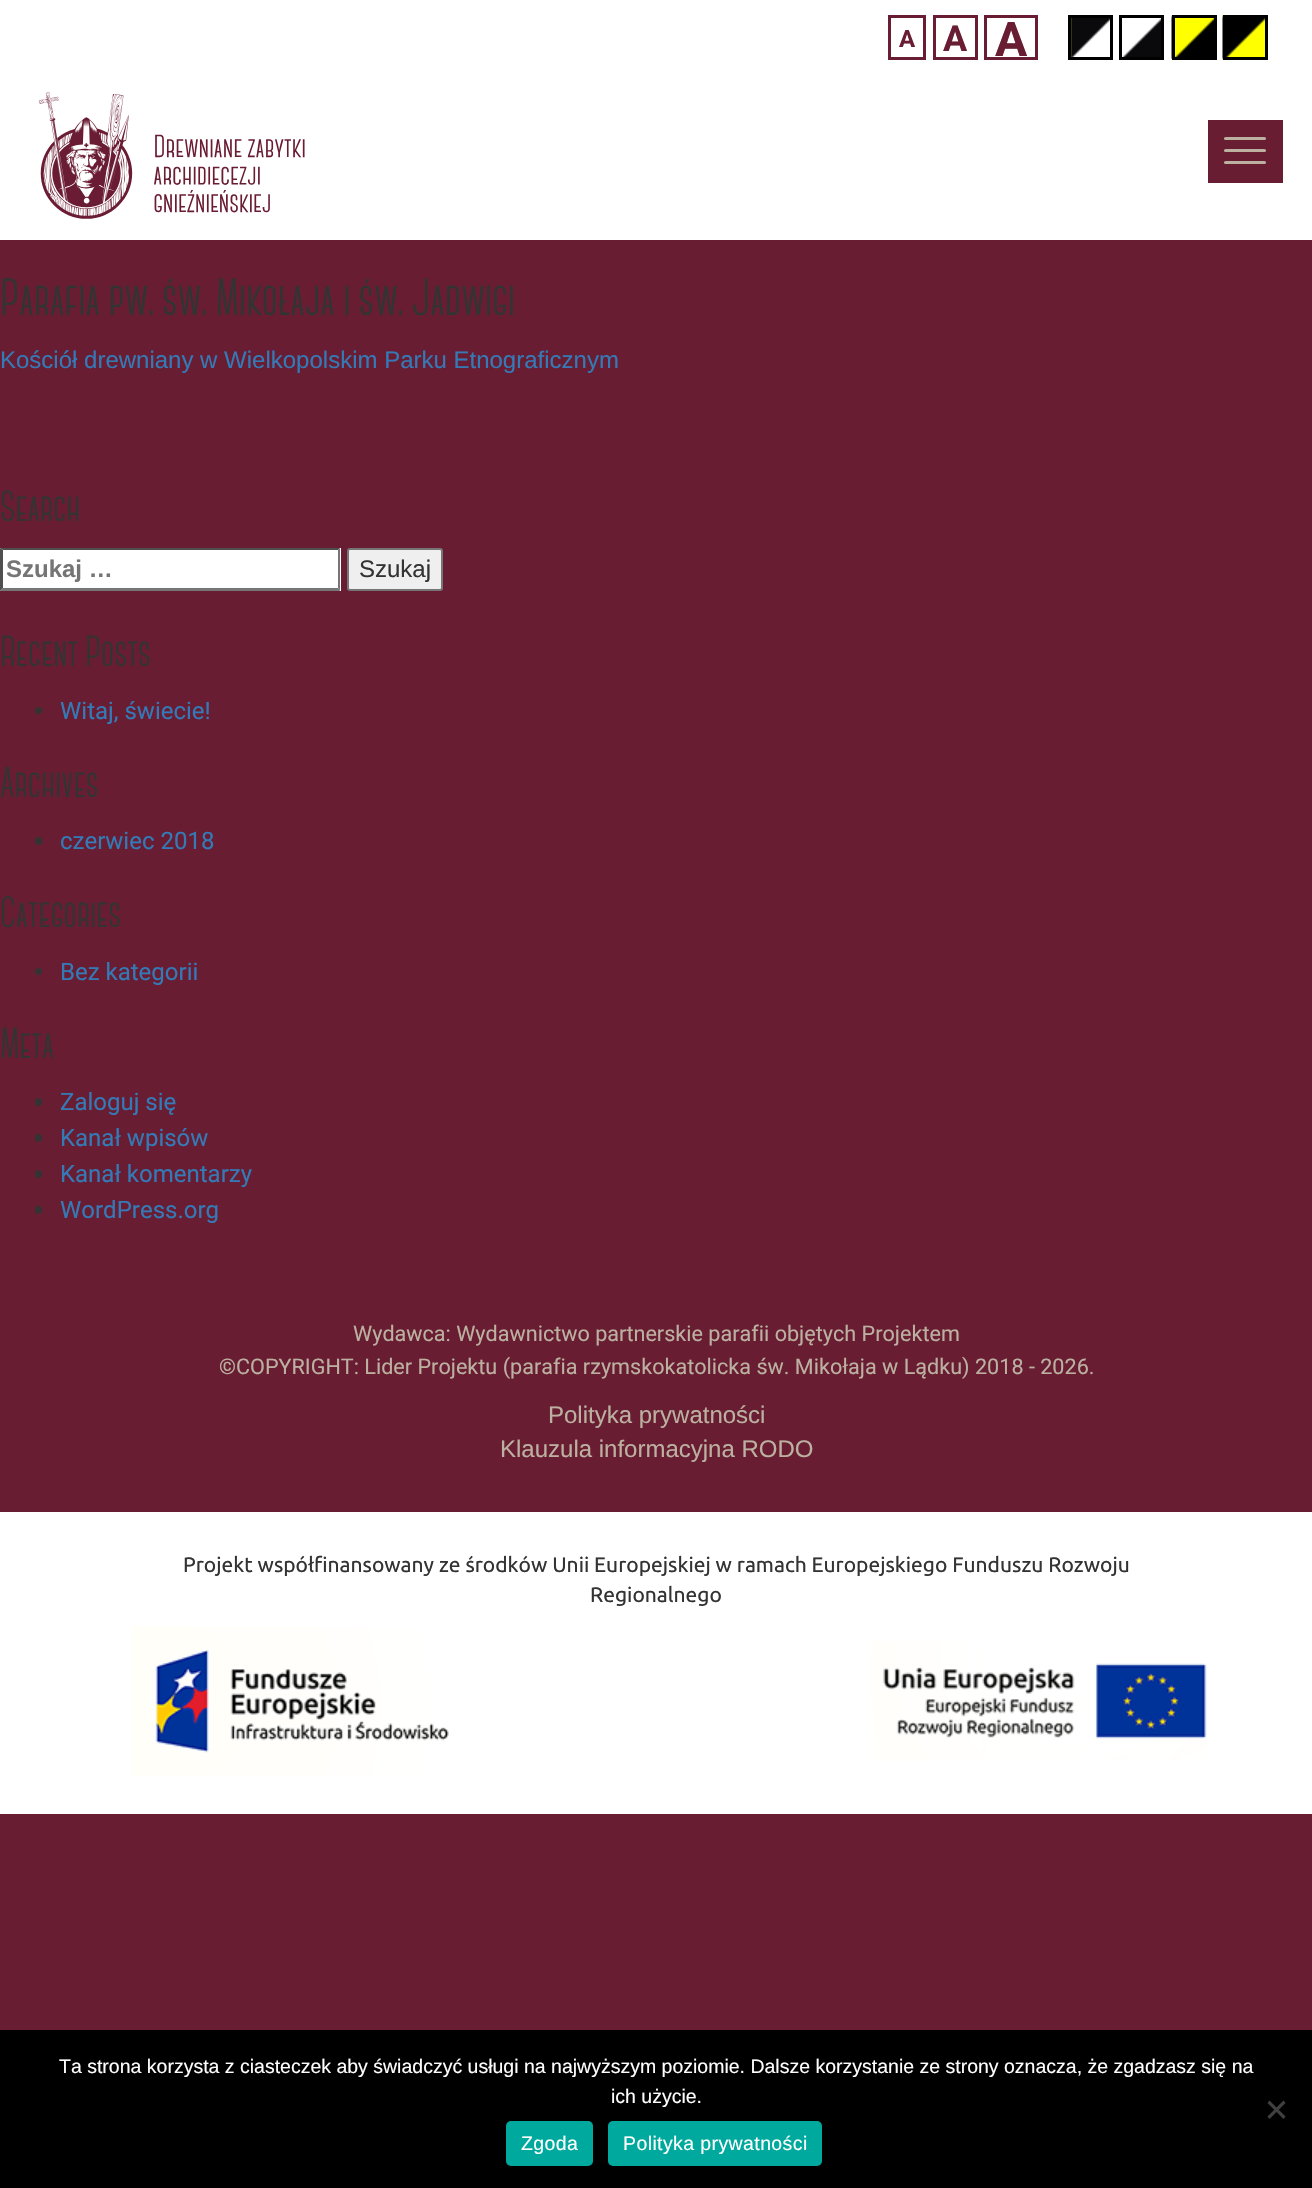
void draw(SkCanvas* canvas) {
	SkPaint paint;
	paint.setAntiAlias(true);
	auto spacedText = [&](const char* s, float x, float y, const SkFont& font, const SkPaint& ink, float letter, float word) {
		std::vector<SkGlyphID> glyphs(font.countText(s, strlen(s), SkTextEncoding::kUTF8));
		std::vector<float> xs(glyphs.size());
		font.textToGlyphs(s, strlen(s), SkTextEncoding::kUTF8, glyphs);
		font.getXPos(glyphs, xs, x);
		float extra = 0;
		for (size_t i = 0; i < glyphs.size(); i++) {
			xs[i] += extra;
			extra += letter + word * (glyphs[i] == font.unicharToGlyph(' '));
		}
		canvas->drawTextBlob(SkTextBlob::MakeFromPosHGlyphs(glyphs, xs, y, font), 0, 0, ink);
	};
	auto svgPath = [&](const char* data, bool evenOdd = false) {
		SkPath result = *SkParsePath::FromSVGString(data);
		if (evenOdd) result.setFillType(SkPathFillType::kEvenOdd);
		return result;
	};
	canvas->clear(0xff691d33);
	paint.setColor(0xffffffff);
	canvas->drawRect(SkRect::MakeXYWH(0, 0, 1312, 240), paint);
	paint.setStroke(true);
	paint.setStrokeWidth(3);
	paint.setColor(0xff691d33);
	canvas->drawRect(SkRect::MakeXYWH(889.5, 16.5, 35, 42), paint);
	SkFont f1(fontMgr->matchFamilyStyle("Roboto", SkFontStyle::Bold()), 24);
	f1.setSubpixel(true);
	paint.setStroke(false);
	canvas->drawString("A", 899, 47, f1, paint);
	paint.setStroke(true);
	canvas->drawRect(SkRect::MakeXYWH(934.5, 16.5, 42, 42), paint);
	SkFont f2(fontMgr->matchFamilyStyle("Roboto", SkFontStyle::Bold()), 36);
	f2.setSubpixel(true);
	paint.setStroke(false);
	canvas->drawString("A", 943, 51, f2, paint);
	paint.setStroke(true);
	canvas->drawRect(SkRect::MakeXYWH(985.5, 16.5, 51, 42), paint);
	SkFont f3(fontMgr->matchFamilyStyle("Roboto", SkFontStyle::Bold()), 48);
	f3.setSubpixel(true);
	paint.setStroke(false);
	canvas->drawString("A", 995, 56, f3, paint);
	canvas->drawImageRect(SkImages::DeferredFromEncodedData(SkData::MakeFromFileName("img1.png")), SkRect::MakeXYWH(1071, 18, 39, 39), SkSamplingOptions());
	paint.setStroke(true);
	paint.setColor(0xff000000);
	canvas->drawRect(SkRect::MakeXYWH(1069.5, 16.5, 42, 42), paint);
	canvas->drawImageRect(SkImages::DeferredFromEncodedData(SkData::MakeFromFileName("img2.png")), SkRect::MakeXYWH(1122, 18, 39, 39), SkSamplingOptions());
	canvas->drawRect(SkRect::MakeXYWH(1120.5, 16.5, 42, 42), paint);
	canvas->drawImageRect(SkImages::DeferredFromEncodedData(SkData::MakeFromFileName("img3.png")), SkRect::MakeXYWH(1171, 15, 43, 45), SkSamplingOptions());
	canvas->drawRect(SkRect::MakeXYWH(1173.5, 16.5, 42, 42), paint);
	canvas->drawImageRect(SkImages::DeferredFromEncodedData(SkData::MakeFromFileName("img4.png")), SkRect::MakeXYWH(1222, 15, 43, 45), SkSamplingOptions());
	canvas->drawRect(SkRect::MakeXYWH(1224.5, 16.5, 42, 42), paint);
	canvas->drawImageRect(SkImages::DeferredFromEncodedData(SkData::MakeFromFileName("img5.png")), SkRect::MakeXYWH(39, 92, 266, 127), SkSamplingOptions());
	paint.setStroke(false);
	paint.setColor(0xff691d33);
	canvas->drawRect(SkRect::MakeXYWH(1208, 120, 75, 63), paint);
	paint.setColor(0xffbcb0a0);
	canvas->drawRoundRect(SkRect::MakeXYWH(1224, 137, 42, 3), 1.5, 1.5, paint);
	canvas->drawRoundRect(SkRect::MakeXYWH(1224, 149, 42, 3), 1.5, 1.5, paint);
	canvas->drawRoundRect(SkRect::MakeXYWH(1224, 161, 42, 3), 1.5, 1.5, paint);
	SkFont f4(fontMgr->matchFamilyStyle("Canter", SkFontStyle::Bold()), 54);
	f4.setSubpixel(true);
	paint.setColor(0xff333333);
	canvas->drawString("Parafia pw. św. Mikołaja i św. Jadwigi", 0, 315, f4, paint);
	SkFont f5(fontMgr->matchFamilyStyle("Liberation Sans", SkFontStyle::Normal()), 24);
	f5.setSubpixel(true);
	paint.setColor(0xff337ab7);
	canvas->drawString("Kościół drewniany w Wielkopolskim Parku Etnograficznym", 0, 368, f5, paint);
	SkFont f6(fontMgr->matchFamilyStyle("Canter", SkFontStyle::Bold()), 45);
	f6.setSubpixel(true);
	paint.setColor(0xff333333);
	canvas->drawString("Search", 0, 521, f6, paint);
	paint.setColor(0xffffffff);
	canvas->drawRect(SkRect::MakeXYWH(0, 548, 341, 43), paint);
	paint.setColor(0xff4f4f4f);
	canvas->drawPath(svgPath("M0 548H340L338 550H3Z"), paint);
	paint.setColor(0xff767676);
	canvas->drawPath(svgPath("M340 548V591L338 588V550Z"), paint);
	canvas->drawPath(svgPath("M340 591H0L3 588H338Z"), paint);
	paint.setColor(0xff4f4f4f);
	canvas->drawPath(svgPath("M0 591V548L3 550V588Z"), paint);
	SkFont f7(fontMgr->matchFamilyStyle("Liberation Sans", SkFontStyle::Bold()), 24);
	f7.setSubpixel(true);
	paint.setColor(0xff757575);
	canvas->drawString("Szukaj …", 6, 577, f7, paint);
	paint.setColor(0xffefefef);
	canvas->drawRoundRect(SkRect::MakeXYWH(348, 549, 94, 41), 2, 2, paint);
	paint.setStroke(true);
	paint.setStrokeWidth(2);
	paint.setColor(0xff767676);
	canvas->drawRoundRect(SkRect::MakeXYWH(348, 549, 94, 41), 2, 2, paint);
	paint.setStroke(false);
	paint.setColor(0xff333333);
	canvas->drawString("Szukaj", 359, 577, f5, paint);
	canvas->drawString("Recent Posts", 0, 666, f6, paint);
	canvas->drawCircle(38.5, 710.5, 3.5, paint);
	SkFont f8(fontMgr->matchFamilyStyle("Roboto", SkFontStyle::Normal()), 24);
	f8.setSubpixel(true);
	paint.setColor(0xff337ab7);
	canvas->drawString("Witaj, świecie!", 60, 719, f8, paint);
	paint.setColor(0xff333333);
	canvas->drawString("Archives", 0, 797, f6, paint);
	canvas->drawRoundRect(SkRect::MakeXYWH(35, 837, 7, 8), 3.5, 3.5, paint);
	paint.setColor(0xff337ab7);
	canvas->drawString("czerwiec 2018", 60, 849, f8, paint);
	paint.setColor(0xff333333);
	canvas->drawString("Categories", 0, 927, f6, paint);
	canvas->drawCircle(38.5, 971.5, 3.5, paint);
	paint.setColor(0xff337ab7);
	canvas->drawString("Bez kategorii", 60, 980, f8, paint);
	paint.setColor(0xff333333);
	canvas->drawString("Meta", 0, 1058, f6, paint);
	canvas->drawRoundRect(SkRect::MakeXYWH(35, 1098, 7, 8), 3.5, 3.5, paint);
	paint.setColor(0xff337ab7);
	canvas->drawString("Zaloguj się", 60, 1110, f8, paint);
	paint.setColor(0xff333333);
	canvas->drawRoundRect(SkRect::MakeXYWH(35, 1134, 7, 8), 3.5, 3.5, paint);
	paint.setColor(0xff337ab7);
	canvas->drawString("Kanał wpisów", 60, 1146, f8, paint);
	paint.setColor(0xff333333);
	canvas->drawRoundRect(SkRect::MakeXYWH(35, 1170, 7, 8), 3.5, 3.5, paint);
	paint.setColor(0xff337ab7);
	canvas->drawString("Kanał komentarzy", 60, 1182, f8, paint);
	paint.setColor(0xff333333);
	canvas->drawRoundRect(SkRect::MakeXYWH(35, 1206, 7, 8), 3.5, 3.5, paint);
	paint.setColor(0xff337ab7);
	canvas->drawString("WordPress.org", 60, 1218, f8, paint);
	SkFont f9(fontMgr->matchFamilyStyle("Roboto", SkFontStyle::Normal()), 21.6);
	f9.setSubpixel(true);
	paint.setColor(0xffbcb0a0);
	canvas->drawString("Wydawca: Wydawnictwo partnerskie parafii objętych Projektem", 353, 1341, f9, paint);
	canvas->drawString("©COPYRIGHT: Lider Projektu (parafia rzymskokatolicka św. Mikołaja w Lądku) 2018 - 2026.", 219, 1374, f9, paint);
	canvas->drawString("Polityka prywatności", 548, 1423, f5, paint);
	canvas->drawString("Klauzula informacyjna RODO", 500, 1457, f5, paint);
	paint.setColor(0xffffffff);
	canvas->drawRect(SkRect::MakeXYWH(0, 1512, 1312, 302), paint);
	SkFont f10(fontMgr->matchFamilyStyle("Ubuntu", SkFontStyle::Normal()), 21);
	f10.setSubpixel(true);
	paint.setColor(0xff333333);
	canvas->drawString("Projekt współfinansowany ze środków Unii Europejskiej w ramach Europejskiego Funduszu Rozwoju", 183, 1572, f10, paint);
	canvas->drawString("Regionalnego", 590, 1602, f10, paint);
	canvas->drawImageRect(SkImages::DeferredFromEncodedData(SkData::MakeFromFileName("img6.png")), SkRect::MakeXYWH(132, 1626, 317, 150), SkSamplingOptions());
	canvas->drawImageRect(SkImages::DeferredFromEncodedData(SkData::MakeFromFileName("img7.png")), SkRect::MakeXYWH(871, 1641, 336, 120), SkSamplingOptions());
	paint.setColor(0xff000000);
	canvas->drawRect(SkRect::MakeXYWH(0, 2030, 1312, 158), paint);
	SkFont f11(fontMgr->matchFamilyStyle("Liberation Sans", SkFontStyle::Normal()), 19.5);
	f11.setSubpixel(true);
	paint.setColor(0xffffffff);
	canvas->drawString("Ta strona korzysta z ciasteczek aby świadczyć usługi na najwyższym poziomie. Dalsze korzystanie ze strony oznacza, że zgadzasz się na", 59, 2073, f11, paint);
	canvas->drawString("ich użycie.", 611, 2103, f11, paint);
	paint.setColor(0xff404040);
	canvas->drawPath(svgPath("M1283.5 2100.5L1285.5 2103L1269.5 2119L1267.5 2116.5Z"), paint);
	canvas->drawPath(svgPath("M1267.5 2103L1269.5 2100.5L1285.5 2116.5L1283.5 2119Z"), paint);
	paint.setColor(0xff00a99d);
	canvas->drawRoundRect(SkRect::MakeXYWH(506, 2121, 87, 45), 5, 5, paint);
	paint.setColor(0xffffffff);
	spacedText("Zgoda", 521, 2150, f11, paint, 0.4, 0);
	paint.setColor(0xff00a99d);
	canvas->drawRoundRect(SkRect::MakeXYWH(608, 2121, 214, 45), 5, 5, paint);
	paint.setColor(0xffffffff);
	spacedText("Polityka prywatności", 623, 2150, f11, paint, 0.4, 0);
}
